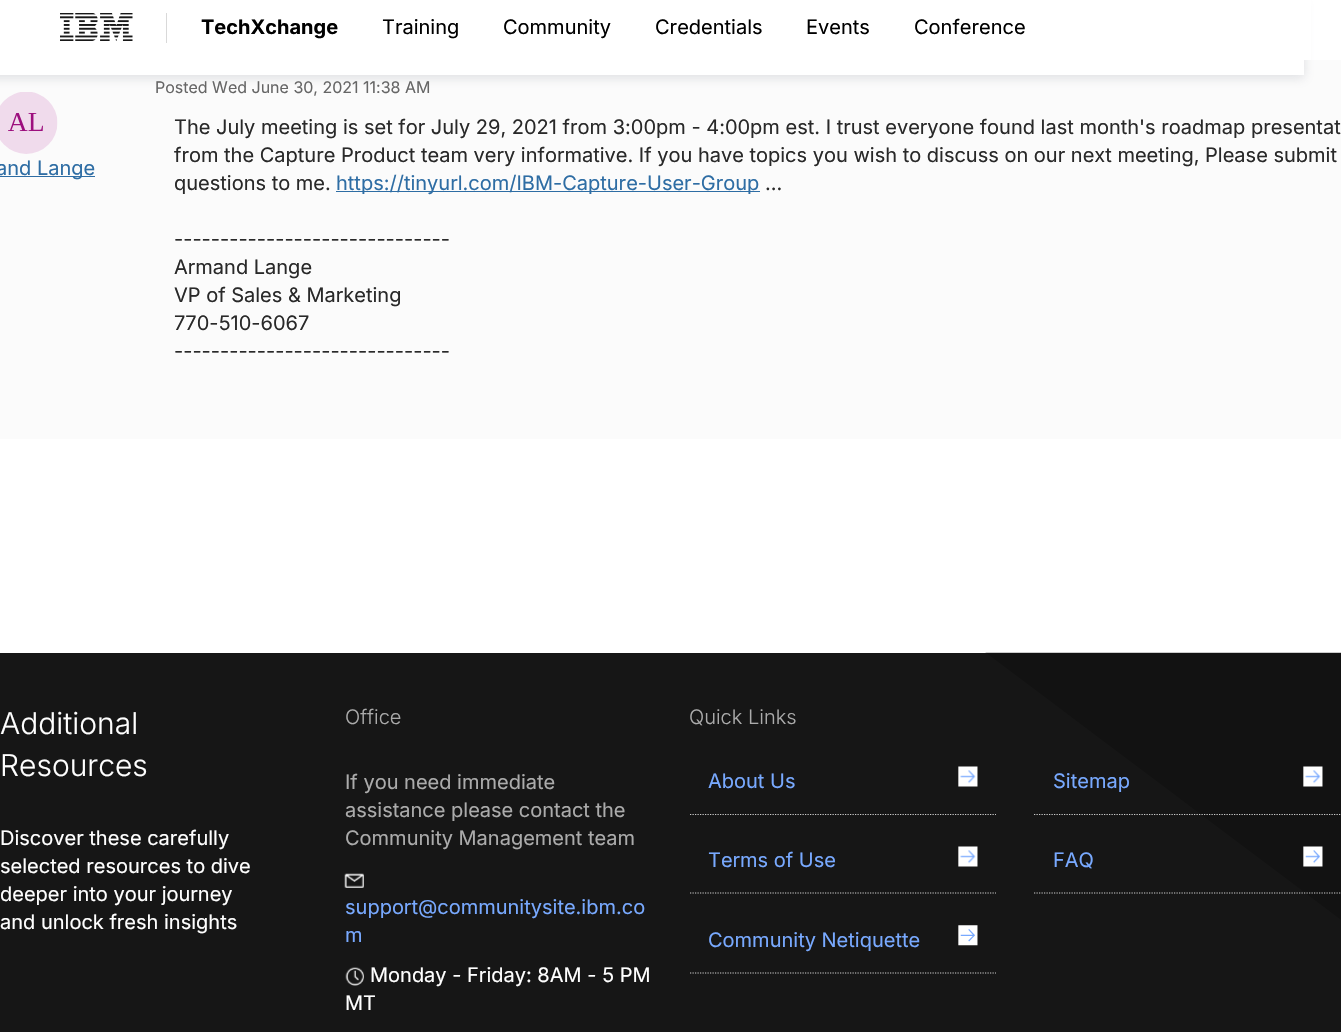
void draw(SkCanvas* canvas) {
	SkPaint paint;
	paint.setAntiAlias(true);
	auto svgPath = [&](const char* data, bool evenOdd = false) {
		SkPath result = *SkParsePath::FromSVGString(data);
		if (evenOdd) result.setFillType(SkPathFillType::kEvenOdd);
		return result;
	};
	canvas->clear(0xffffffff);
	paint.setColor(0xfffbfbfb);
	canvas->drawRect(SkRect::MakeXYWH(0, 60, 1341, 379), paint);
	canvas->drawImageRect(SkImages::DeferredFromEncodedData(SkData::MakeFromFileName("img2.png")), SkRect::MakeXYWH(0, 92, 58, 62), SkSamplingOptions());
	paint.setColor(0x3d838791);
	paint.setMaskFilter(SkMaskFilter::MakeBlur(kNormal_SkBlurStyle, 5));
	canvas->drawRect(SkRect::MakeXYWH(-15, 3, 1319, 75), paint);
	paint.setMaskFilter(nullptr);
	paint.setColor(0xffffffff);
	canvas->drawRect(SkRect::MakeXYWH(0, 60, 1304, 15), paint);
	canvas->drawRect(SkRect::MakeXYWH(0, 0, 1311, 60), paint);
	canvas->drawImageRect(SkImages::DeferredFromEncodedData(SkData::MakeFromFileName("img1.png")), SkRect::MakeXYWH(60, 13, 73, 28), SkSamplingOptions());
	paint.setColor(0xffd9d9d9);
	canvas->drawRect(SkRect::MakeXYWH(166, 13, 1, 30), paint);
	SkFont f1(fontMgr->matchFamilyStyle("Inter", SkFontStyle::Bold()), 20);
	f1.setSubpixel(true);
	paint.setColor(0xff000000);
	canvas->drawString("TechXchange", 201, 34, f1, paint);
	SkFont f2(fontMgr->matchFamilyStyle("Inter", SkFontStyle::Normal()), 20);
	f2.setSubpixel(true);
	canvas->drawString("Training", 382, 34, f2, paint);
	canvas->drawString("Community", 503, 34, f2, paint);
	canvas->drawString("Credentials", 655, 34, f2, paint);
	canvas->drawString("Events", 806, 34, f2, paint);
	canvas->drawString("Conference", 914, 34, f2, paint);
	paint.setColor(0xff2e6da4);
	canvas->drawRect(SkRect::MakeXYWH(0, 176, 95, 1), paint);
	canvas->drawString("and Lange", -4, 175, f2, paint);
	SkFont f3(fontMgr->matchFamilyStyle("Inter", SkFontStyle::Normal()), 16);
	f3.setSubpixel(true);
	paint.setColor(0xff666666);
	canvas->drawString("Posted Wed June 30, 2021 11:38 AM", 155, 93, f3, paint);
	paint.setColor(0xff292929);
	canvas->drawString("The July meeting is set for July 29, 2021 from 3:00pm - 4:00pm est. I trust everyone found last month's roadmap presentat", 174, 134, f2, paint);
	canvas->drawString("from the Capture Product team very informative. If you have topics you wish to discuss on our next meeting, Please submit", 174, 162, f2, paint);
	canvas->drawString("questions to me.", 174, 190, f2, paint);
	paint.setColor(0xff2e6da4);
	canvas->drawRect(SkRect::MakeXYWH(336, 191, 424, 1), paint);
	canvas->drawString("https://tinyurl.com/IBM-Capture-User-Group", 336, 190, f2, paint);
	paint.setColor(0xff292929);
	canvas->drawString("...", 765, 190, f2, paint);
	canvas->drawString("------------------------------", 174, 246, f2, paint);
	canvas->drawString("Armand Lange", 174, 274, f2, paint);
	canvas->drawString("VP of Sales & Marketing", 174, 302, f2, paint);
	canvas->drawString("770-510-6067", 174, 330, f2, paint);
	canvas->drawString("------------------------------", 174, 358, f2, paint);
	paint.setColor(0xff161616);
	canvas->drawRect(SkRect::MakeXYWH(0, 653, 1341, 379), paint);
	SkFont f4(fontMgr->matchFamilyStyle("Inter", SkFontStyle(300, SkFontStyle::kNormal_Width, SkFontStyle::kUpright_Slant)), 30);
	f4.setSubpixel(true);
	paint.setColor(0xffffffff);
	canvas->drawString("Additional", 0, 734, f4, paint);
	canvas->drawString("Resources", 0, 776, f4, paint);
	canvas->drawString("Discover these carefully", 0, 845, f2, paint);
	canvas->drawString("selected resources to dive", 0, 873, f2, paint);
	canvas->drawString("deeper into your journey", 0, 901, f2, paint);
	canvas->drawString("and unlock fresh insights", 0, 929, f2, paint);
	SkFont f5(fontMgr->matchFamilyStyle("Inter", SkFontStyle(300, SkFontStyle::kNormal_Width, SkFontStyle::kUpright_Slant)), 20);
	f5.setSubpixel(true);
	paint.setColor(0xffababab);
	canvas->drawString("Office", 345, 724, f5, paint);
	canvas->drawString("If you need immediate", 345, 789, f2, paint);
	canvas->drawString("assistance please contact the", 345, 817, f2, paint);
	canvas->drawString("Community Management team", 345, 845, f2, paint);
	canvas->drawImageRect(SkImages::DeferredFromEncodedData(SkData::MakeFromFileName("img3.png")), SkRect::MakeXYWH(344, 873, 20, 15), SkSamplingOptions());
	paint.setColor(0xff78a9ff);
	canvas->drawString("support@communitysite.ibm.co", 345, 914, f2, paint);
	canvas->drawString("m", 345, 942, f2, paint);
	canvas->drawImageRect(SkImages::DeferredFromEncodedData(SkData::MakeFromFileName("img4.png")), SkRect::MakeXYWH(345, 967, 19, 19), SkSamplingOptions());
	paint.setColor(0xffffffff);
	canvas->drawString("Monday - Friday: 8AM - 5 PM", 370, 982, f2, paint);
	canvas->drawString("MT", 345, 1010, f2, paint);
	paint.setColor(0xffababab);
	canvas->drawString("Quick Links", 689, 724, f5, paint);
	paint.setColor(0x33000000);
	canvas->drawPath(svgPath("M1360 652V934L985 652Z"), paint);
	paint.setStroke(true);
	paint.setStrokeWidth(1.2);
	paint.setColor(0xffcccccc);
	paint.setPathEffect(SkDashPathEffect::Make({{1.25f, 1.25f}}, 0));
	canvas->drawPath(svgPath("M690 814.5H996"), paint);
	paint.setPathEffect(nullptr);
	paint.setStroke(false);
	paint.setColor(0xff78a9ff);
	canvas->drawString("About Us", 708, 788, f2, paint);
	canvas->drawImageRect(SkImages::DeferredFromEncodedData(SkData::MakeFromFileName("img5.png")), SkRect::MakeXYWH(958, 766, 20, 21), SkSamplingOptions());
	paint.setStroke(true);
	paint.setColor(0xffcccccc);
	paint.setPathEffect(SkDashPathEffect::Make({{1.25f, 1.25f}}, 0));
	canvas->drawPath(svgPath("M690 893H996"), paint);
	paint.setPathEffect(nullptr);
	paint.setStroke(false);
	paint.setColor(0xff78a9ff);
	canvas->drawString("Terms of Use", 708, 867, f2, paint);
	canvas->drawImageRect(SkImages::DeferredFromEncodedData(SkData::MakeFromFileName("img5.png")), SkRect::MakeXYWH(958, 846, 20, 21), SkSamplingOptions());
	paint.setStroke(true);
	paint.setColor(0xffcccccc);
	paint.setPathEffect(SkDashPathEffect::Make({{1.25f, 1.25f}}, 0));
	canvas->drawPath(svgPath("M690 973H996"), paint);
	paint.setPathEffect(nullptr);
	paint.setStroke(false);
	paint.setColor(0xff78a9ff);
	canvas->drawString("Community Netiquette", 708, 947, f2, paint);
	canvas->drawImageRect(SkImages::DeferredFromEncodedData(SkData::MakeFromFileName("img6.png")), SkRect::MakeXYWH(958, 925, 20, 21), SkSamplingOptions());
	paint.setStroke(true);
	paint.setColor(0xffcccccc);
	paint.setPathEffect(SkDashPathEffect::Make({{1.25f, 1.25f}}, 0));
	canvas->drawPath(svgPath("M1034 814.5H1341"), paint);
	paint.setPathEffect(nullptr);
	paint.setStroke(false);
	paint.setColor(0xff78a9ff);
	canvas->drawString("Sitemap", 1053, 788, f2, paint);
	canvas->drawImageRect(SkImages::DeferredFromEncodedData(SkData::MakeFromFileName("img7.png")), SkRect::MakeXYWH(1303, 766, 20, 21), SkSamplingOptions());
	paint.setStroke(true);
	paint.setColor(0xffcccccc);
	paint.setPathEffect(SkDashPathEffect::Make({{1.25f, 1.25f}}, 0));
	canvas->drawPath(svgPath("M1034 893H1341"), paint);
	paint.setPathEffect(nullptr);
	paint.setStroke(false);
	paint.setColor(0xff78a9ff);
	canvas->drawString("FAQ", 1053, 867, f2, paint);
	canvas->drawImageRect(SkImages::DeferredFromEncodedData(SkData::MakeFromFileName("img8.png")), SkRect::MakeXYWH(1303, 846, 20, 21), SkSamplingOptions());
}
